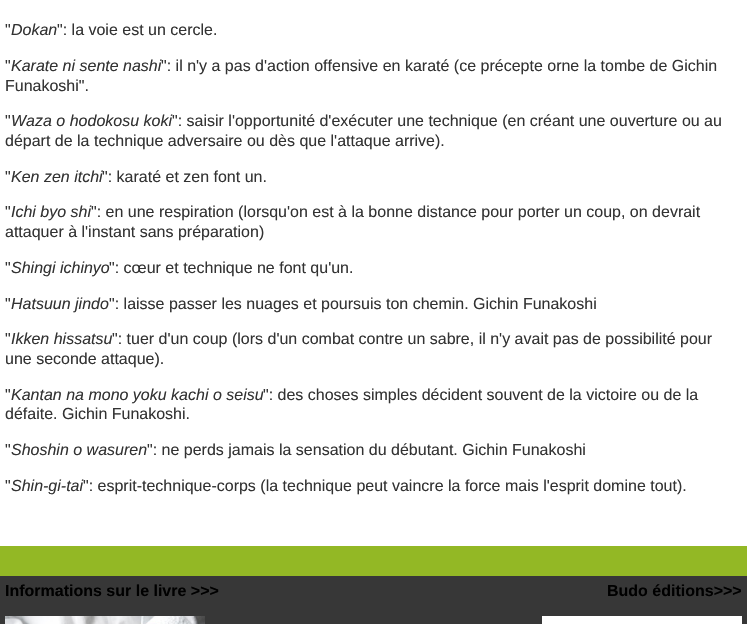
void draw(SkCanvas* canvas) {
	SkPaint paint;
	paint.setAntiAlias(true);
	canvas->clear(0xffffffff);
	SkFont f1(fontMgr->matchFamilyStyle("Liberation Sans", SkFontStyle::Normal()), 16);
	f1.setSubpixel(true);
	paint.setColor(0xff333333);
	canvas->drawString("\"", 5, 35, f1, paint);
	SkFont f2(fontMgr->matchFamilyStyle("Liberation Sans", SkFontStyle::Italic()), 16);
	f2.setSubpixel(true);
	canvas->drawString("Dokan", 11, 35, f2, paint);
	canvas->drawString("\": la voie est un cercle.", 57, 35, f1, paint);
	canvas->drawString("\"", 5, 71, f1, paint);
	canvas->drawString("Karate ni sente nashi", 11, 71, f2, paint);
	canvas->drawString("\": il n'y a pas d'action offensive en karaté (ce précepte orne la tombe de Gichin", 161, 71, f1, paint);
	canvas->drawString("Funakoshi\".", 5, 91, f1, paint);
	canvas->drawString("\"", 5, 126, f1, paint);
	canvas->drawString("Waza o hodokosu koki", 11, 126, f2, paint);
	canvas->drawString("\": saisir l'opportunité d'exécuter une technique (en créant une ouverture ou au", 172, 126, f1, paint);
	canvas->drawString("départ de la technique adversaire ou dès que l'attaque arrive).", 5, 146, f1, paint);
	canvas->drawString("\"", 5, 182, f1, paint);
	canvas->drawString("Ken zen itchi", 11, 182, f2, paint);
	canvas->drawString("\": karaté et zen font un.", 102, 182, f1, paint);
	canvas->drawString("\"", 5, 217, f1, paint);
	canvas->drawString("Ichi byo shi", 11, 217, f2, paint);
	canvas->drawString("\": en une respiration (lorsqu'on est à la bonne distance pour porter un coup, on devrait", 91, 217, f1, paint);
	canvas->drawString("attaquer à l'instant sans préparation)", 5, 237, f1, paint);
	canvas->drawString("\"", 5, 273, f1, paint);
	canvas->drawString("Shingi ichinyo", 11, 273, f2, paint);
	canvas->drawString("\": cœur et technique ne font qu'un.", 109, 273, f1, paint);
	canvas->drawString("\"", 5, 309, f1, paint);
	canvas->drawString("Hatsuun jindo", 11, 309, f2, paint);
	canvas->drawString("\": laisse passer les nuages et poursuis ton chemin. Gichin Funakoshi", 109, 309, f1, paint);
	canvas->drawString("\"", 5, 344, f1, paint);
	canvas->drawString("Ikken hissatsu", 11, 344, f2, paint);
	canvas->drawString("\": tuer d'un coup (lors d'un combat contre un sabre, il n'y avait pas de possibilité pour", 112, 344, f1, paint);
	canvas->drawString("une seconde attaque).", 5, 364, f1, paint);
	canvas->drawString("\"", 5, 400, f1, paint);
	canvas->drawString("Kantan na mono yoku kachi o seisu", 11, 400, f2, paint);
	canvas->drawString("\": des choses simples décident souvent de la victoire ou de la", 263, 400, f1, paint);
	canvas->drawString("défaite. Gichin Funakoshi.", 5, 419, f1, paint);
	canvas->drawString("\"", 5, 455, f1, paint);
	canvas->drawString("Shoshin o wasuren", 11, 455, f2, paint);
	canvas->drawString("\": ne perds jamais la sensation du débutant. Gichin Funakoshi", 147, 455, f1, paint);
	canvas->drawString("\"", 5, 491, f1, paint);
	canvas->drawString("Shin-gi-tai", 11, 491, f2, paint);
	canvas->drawString("\": esprit-technique-corps (la technique peut vaincre la force mais l'esprit domine tout).", 83, 491, f1, paint);
	paint.setColor(0xff93b825);
	canvas->drawRect(SkRect::MakeXYWH(0, 546, 747, 30), paint);
	paint.setColor(0xff373737);
	canvas->drawRect(SkRect::MakeXYWH(0, 576, 747, 48), paint);
	SkFont f3(fontMgr->matchFamilyStyle("Liberation Sans", SkFontStyle::Bold()), 16);
	f3.setSubpixel(true);
	paint.setColor(0xff000000);
	canvas->drawString("Informations sur le livre >>>", 5, 596, f3, paint);
	canvas->drawImageRect(SkImages::DeferredFromEncodedData(SkData::MakeFromFileName("img1.png")), SkRect::MakeXYWH(5, 616, 200, 8), SkSamplingOptions());
	canvas->drawString("Budo éditions>>>", 607, 596, f3, paint);
	paint.setColor(0xffffffff);
	canvas->drawRect(SkRect::MakeXYWH(542, 616, 200, 8), paint);
}
